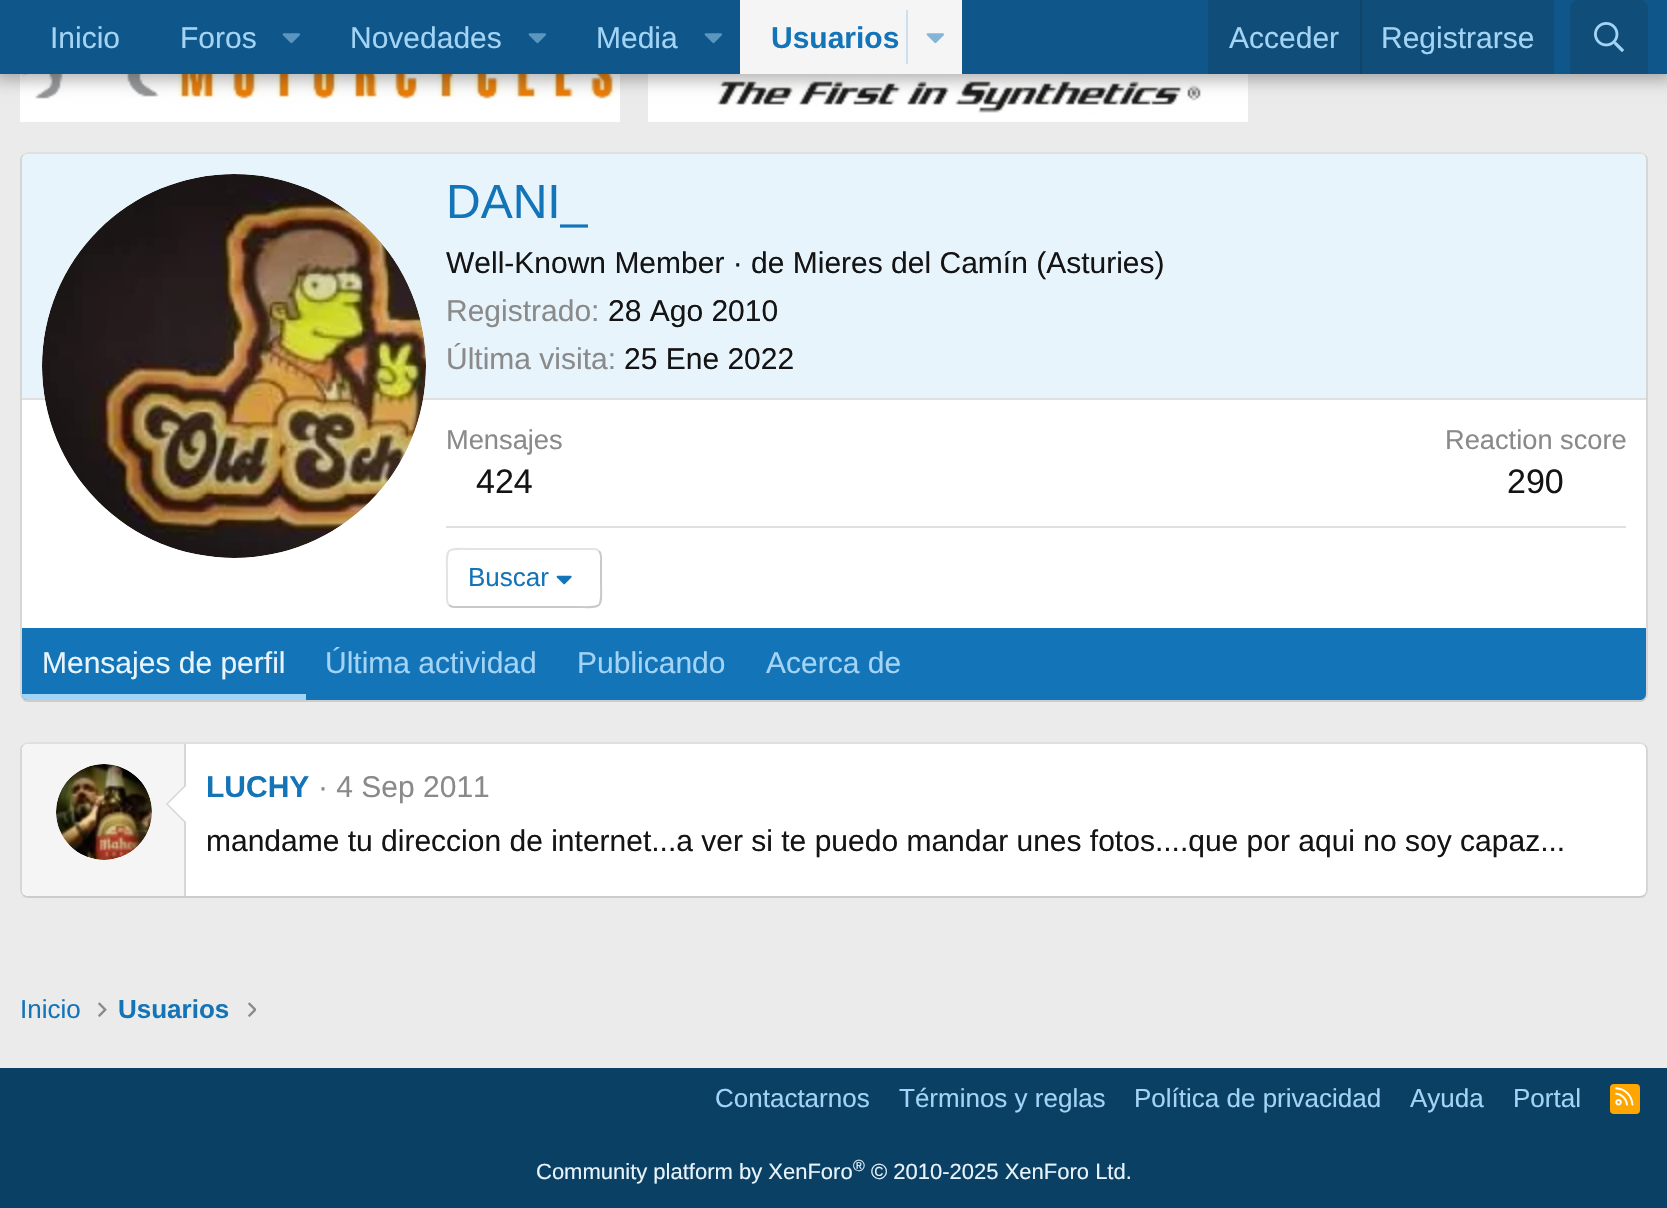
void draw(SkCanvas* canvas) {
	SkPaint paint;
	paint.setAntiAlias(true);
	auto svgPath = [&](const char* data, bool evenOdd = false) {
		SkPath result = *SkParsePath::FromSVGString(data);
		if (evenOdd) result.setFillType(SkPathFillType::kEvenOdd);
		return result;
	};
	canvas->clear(0xffebebeb);
	canvas->drawImageRect(SkImages::DeferredFromEncodedData(SkData::MakeFromFileName("img4.png")), SkRect::MakeXYWH(20, 74, 600, 48), SkSamplingOptions());
	canvas->drawImageRect(SkImages::DeferredFromEncodedData(SkData::MakeFromFileName("img5.png")), SkRect::MakeXYWH(648, 74, 600, 48), SkSamplingOptions());
	paint.setColor(0x4d000000);
	paint.setMaskFilter(SkMaskFilter::MakeBlur(kNormal_SkBlurStyle, 8));
	canvas->drawRect(SkRect::MakeXYWH(-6, -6, 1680, 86), paint);
	paint.setMaskFilter(nullptr);
	paint.setColor(0xff0f578a);
	canvas->drawRect(SkRect::MakeXYWH(0, 0, 1667, 74), paint);
	SkFont f1(fontMgr->matchFamilyStyle("Liberation Sans", SkFontStyle::Normal()), 30);
	f1.setSubpixel(true);
	paint.setColor(0xffa3d4f5);
	canvas->drawString("Inicio", 50, 48, f1, paint);
	canvas->drawString("Foros", 180, 48, f1, paint);
	canvas->drawImageRect(SkImages::DeferredFromEncodedData(SkData::MakeFromFileName("img1.png")), SkRect::MakeXYWH(282, 33, 18, 11), SkSamplingOptions());
	canvas->drawString("Novedades", 350, 48, f1, paint);
	canvas->drawImageRect(SkImages::DeferredFromEncodedData(SkData::MakeFromFileName("img1.png")), SkRect::MakeXYWH(528, 33, 18, 11), SkSamplingOptions());
	canvas->drawString("Media", 596, 48, f1, paint);
	canvas->drawImageRect(SkImages::DeferredFromEncodedData(SkData::MakeFromFileName("img1.png")), SkRect::MakeXYWH(704, 33, 18, 11), SkSamplingOptions());
	paint.setColor(0xfff5f5f5);
	canvas->drawRect(SkRect::MakeXYWH(740, 0, 222, 74), paint);
	SkFont f2(fontMgr->matchFamilyStyle("Liberation Sans", SkFontStyle::Bold()), 30);
	f2.setSubpixel(true);
	paint.setColor(0xff1474b8);
	canvas->drawString("Usuarios", 771, 48, f2, paint);
	paint.setColor(0xffcedfeb);
	canvas->drawRect(SkRect::MakeXYWH(906, 10, 2, 54), paint);
	canvas->drawImageRect(SkImages::DeferredFromEncodedData(SkData::MakeFromFileName("img2.png")), SkRect::MakeXYWH(926, 33, 18, 11), SkSamplingOptions());
	paint.setColor(0xff104d78);
	canvas->drawRect(SkRect::MakeXYWH(1208, 0, 346, 74), paint);
	paint.setColor(0xffa3d4f5);
	canvas->drawString("Acceder", 1229, 48, f1, paint);
	paint.setColor(0xff114469);
	canvas->drawRect(SkRect::MakeXYWH(1360, 0, 2, 74), paint);
	paint.setColor(0xffa3d4f5);
	canvas->drawString("Registrarse", 1381, 48, f1, paint);
	paint.setColor(0xff104d78);
	canvas->drawPath(svgPath("M1578 0H1640C1644.5 0 1648 3.5 1648 8V74H1570V8C1570 3.5 1573.5 0 1578 0Z"), paint);
	canvas->drawImageRect(SkImages::DeferredFromEncodedData(SkData::MakeFromFileName("img3.png")), SkRect::MakeXYWH(1594, 22, 30, 30), SkSamplingOptions());
	paint.setColor(0xffffffff);
	canvas->drawRoundRect(SkRect::MakeXYWH(20, 152, 1628, 550), 8, 8, paint);
	paint.setStroke(true);
	paint.setStrokeWidth(2);
	paint.setColor(0xffe0e0e0);
	canvas->drawPath(svgPath("M23 155C24.5 153.5 26 153 28 153H1640C1642 153 1643.5 153.5 1645 155"), paint);
	paint.setColor(0xffd6d6d6);
	canvas->drawPath(svgPath("M1645 155C1646.5 156.5 1647 158 1647 160V694C1647 696 1646.5 697.5 1645 699"), paint);
	paint.setColor(0xffcccccc);
	canvas->drawPath(svgPath("M1645 699C1643.5 700.5 1642 701 1640 701H28C26 701 24.5 700.5 23 699"), paint);
	paint.setColor(0xffd6d6d6);
	canvas->drawPath(svgPath("M23 699C21.5 697.5 21 696 21 694V160C21 158 21.5 156.5 23 155"), paint);
	paint.setStroke(false);
	paint.setColor(0xffe8f4fc);
	canvas->drawPath(svgPath("M28 154H1640C1643.5 154 1646 156.5 1646 160V400H22V160C22 156.5 24.5 154 28 154Z"), paint);
	paint.setColor(0xffe0e0e0);
	canvas->drawRect(SkRect::MakeXYWH(22, 398, 1624, 2), paint);
	paint.setColor(0xffffffff);
	canvas->drawCircle(234, 366, 192, paint);
	canvas->drawImageRect(SkImages::DeferredFromEncodedData(SkData::MakeFromFileName("img6.png")), SkRect::MakeXYWH(42, 174, 384, 384), SkSamplingOptions());
	SkFont f3(fontMgr->matchFamilyStyle("Liberation Sans", SkFontStyle::Normal()), 48);
	f3.setSubpixel(true);
	paint.setColor(0xff1474b8);
	canvas->drawString("DANI_", 446, 218, f3, paint);
	paint.setColor(0xff141414);
	canvas->drawString("Well-Known Member · de Mieres del Camín (Asturies)", 446, 273, f1, paint);
	paint.setColor(0xff8a8a8a);
	canvas->drawString("Registrado:", 446, 321, f1, paint);
	paint.setColor(0xff141414);
	canvas->drawString("28 Ago 2010", 608, 321, f1, paint);
	paint.setColor(0xff8a8a8a);
	canvas->drawString("Última visita:", 446, 369, f1, paint);
	paint.setColor(0xff141414);
	canvas->drawString("25 Ene 2022", 624, 369, f1, paint);
	SkFont f4(fontMgr->matchFamilyStyle("Liberation Sans", SkFontStyle::Normal()), 27.25);
	f4.setSubpixel(true);
	paint.setColor(0xff8a8a8a);
	canvas->drawString("Mensajes", 446, 449, f4, paint);
	SkFont f5(fontMgr->matchFamilyStyle("Liberation Sans", SkFontStyle::Normal()), 34);
	f5.setSubpixel(true);
	paint.setColor(0xff141414);
	canvas->drawString("424", 476, 493, f5, paint);
	paint.setColor(0xff8a8a8a);
	canvas->drawString("Reaction score", 1445, 449, f4, paint);
	paint.setColor(0xff141414);
	canvas->drawString("290", 1507, 493, f5, paint);
	paint.setColor(0xffe0e0e0);
	canvas->drawRect(SkRect::MakeXYWH(446, 526, 1180, 2), paint);
	paint.setStroke(true);
	paint.setColor(0xffc9c9c9);
	canvas->drawPath(svgPath("M599 551C602 554 601 559.5 601 563.5V578C601 611.5 605.5 607 570.5 607H454C452 607 450.5 606.5 449 605"), paint);
	paint.setColor(0xffe3e3e3);
	canvas->drawPath(svgPath("M449 605C446 602 447 596.5 447 592.5V578C447 544.5 442.5 549 477.5 549H594C596 549 597.5 549.5 599 551"), paint);
	SkFont f6(fontMgr->matchFamilyStyle("Liberation Sans", SkFontStyle::Normal()), 26);
	f6.setSubpixel(true);
	paint.setStroke(false);
	paint.setColor(0xff1474b8);
	canvas->drawString("Buscar", 468, 586, f6, paint);
	canvas->drawImageRect(SkImages::DeferredFromEncodedData(SkData::MakeFromFileName("img7.png")), SkRect::MakeXYWH(556, 575, 16, 10), SkSamplingOptions());
	canvas->drawPath(svgPath("M22 628H1646V694C1646 697.5 1643.5 700 1640 700H28C24.5 700 22 697.5 22 694Z"), paint);
	paint.setColor(0xffa3d4f5);
	canvas->drawPath(svgPath("M22 694H306V700H28C24.5 700 22 697.5 22 694Z"), paint);
	paint.setColor(0xffe8f4fc);
	canvas->drawString("Mensajes de perfil", 42, 673, f1, paint);
	paint.setColor(0xffa3d4f5);
	canvas->drawString("Última actividad", 325, 673, f1, paint);
	canvas->drawString("Publicando", 577, 673, f1, paint);
	canvas->drawString("Acerca de", 766, 673, f1, paint);
	paint.setColor(0xffffffff);
	canvas->drawRoundRect(SkRect::MakeXYWH(20, 742, 1628, 156), 8, 8, paint);
	paint.setStroke(true);
	paint.setColor(0xffe0e0e0);
	canvas->drawPath(svgPath("M23 745C24.5 743.5 26 743 28 743H1640C1642 743 1643.5 743.5 1645 745"), paint);
	paint.setColor(0xffd6d6d6);
	canvas->drawPath(svgPath("M1645 745C1646.5 746.5 1647 748 1647 750V890C1647 892 1646.5 893.5 1645 895"), paint);
	paint.setColor(0xffcccccc);
	canvas->drawPath(svgPath("M1645 895C1643.5 896.5 1642 897 1640 897H28C26 897 24.5 896.5 23 895"), paint);
	paint.setColor(0xffd6d6d6);
	canvas->drawPath(svgPath("M23 895C21.5 893.5 21 892 21 890V750C21 748 21.5 746.5 23 745"), paint);
	paint.setStroke(false);
	paint.setColor(0xfff5f5f5);
	canvas->drawPath(svgPath("M28 744H186V896H28C24.5 896 22 893.5 22 890V750C22 746.5 24.5 744 28 744Z"), paint);
	paint.setColor(0xffd6d6d6);
	canvas->drawRect(SkRect::MakeXYWH(184, 744, 2, 152), paint);
	paint.setColor(0xffffffff);
	canvas->drawCircle(104, 812, 48, paint);
	canvas->drawImageRect(SkImages::DeferredFromEncodedData(SkData::MakeFromFileName("img8.png")), SkRect::MakeXYWH(56, 764, 96, 96), SkSamplingOptions());
	paint.setColor(0xffd6d6d6);
	canvas->drawPath(svgPath("M186 784V824L166 804Z"), paint);
	paint.setColor(0xffffffff);
	canvas->drawPath(svgPath("M186 786V822L168 804Z"), paint);
	paint.setColor(0xff1474b8);
	canvas->drawString("LUCHY", 206, 797, f2, paint);
	paint.setColor(0xff8a8a8a);
	canvas->drawString("· 4 Sep 2011", 318, 797, f1, paint);
	paint.setColor(0xff141414);
	canvas->drawString("mandame tu direccion de internet...a ver si te puedo mandar unes fotos....que por aqui no soy capaz...", 206, 851, f1, paint);
	paint.setColor(0xff1474b8);
	canvas->drawString("Inicio", 20, 1018, f6, paint);
	canvas->drawImageRect(SkImages::DeferredFromEncodedData(SkData::MakeFromFileName("img9.png")), SkRect::MakeXYWH(98, 1002, 9, 15), SkSamplingOptions());
	SkFont f7(fontMgr->matchFamilyStyle("Liberation Sans", SkFontStyle::Bold()), 26);
	f7.setSubpixel(true);
	canvas->drawString("Usuarios", 118, 1018, f7, paint);
	canvas->drawImageRect(SkImages::DeferredFromEncodedData(SkData::MakeFromFileName("img10.png")), SkRect::MakeXYWH(248, 1002, 8, 15), SkSamplingOptions());
	paint.setColor(0xff0b4065);
	canvas->drawRect(SkRect::MakeXYWH(0, 1068, 1667, 140), paint);
	paint.setColor(0xffa3d4f5);
	canvas->drawString("Contactarnos", 715, 1107, f6, paint);
	canvas->drawString("Términos y reglas", 899, 1107, f6, paint);
	canvas->drawString("Política de privacidad", 1134, 1107, f6, paint);
	canvas->drawString("Ayuda", 1410, 1107, f6, paint);
	canvas->drawString("Portal", 1513, 1107, f6, paint);
	paint.setColor(0xffffa500);
	canvas->drawRoundRect(SkRect::MakeXYWH(1610, 1084, 30, 30), 4, 4, paint);
	canvas->drawImageRect(SkImages::DeferredFromEncodedData(SkData::MakeFromFileName("img11.png")), SkRect::MakeXYWH(1615, 1087, 19, 19), SkSamplingOptions());
	SkFont f8(fontMgr->matchFamilyStyle("Liberation Sans", SkFontStyle::Normal()), 22);
	f8.setSubpixel(true);
	paint.setColor(0xffe8f4fc);
	canvas->drawString("Community platform by XenForo", 536, 1179, f8, paint);
	SkFont f9(fontMgr->matchFamilyStyle("Liberation Sans", SkFontStyle::Normal()), 16);
	f9.setSubpixel(true);
	canvas->drawString("®", 853, 1171, f9, paint);
	canvas->drawString("© 2010-2025 XenForo Ltd.", 871, 1179, f8, paint);
}
